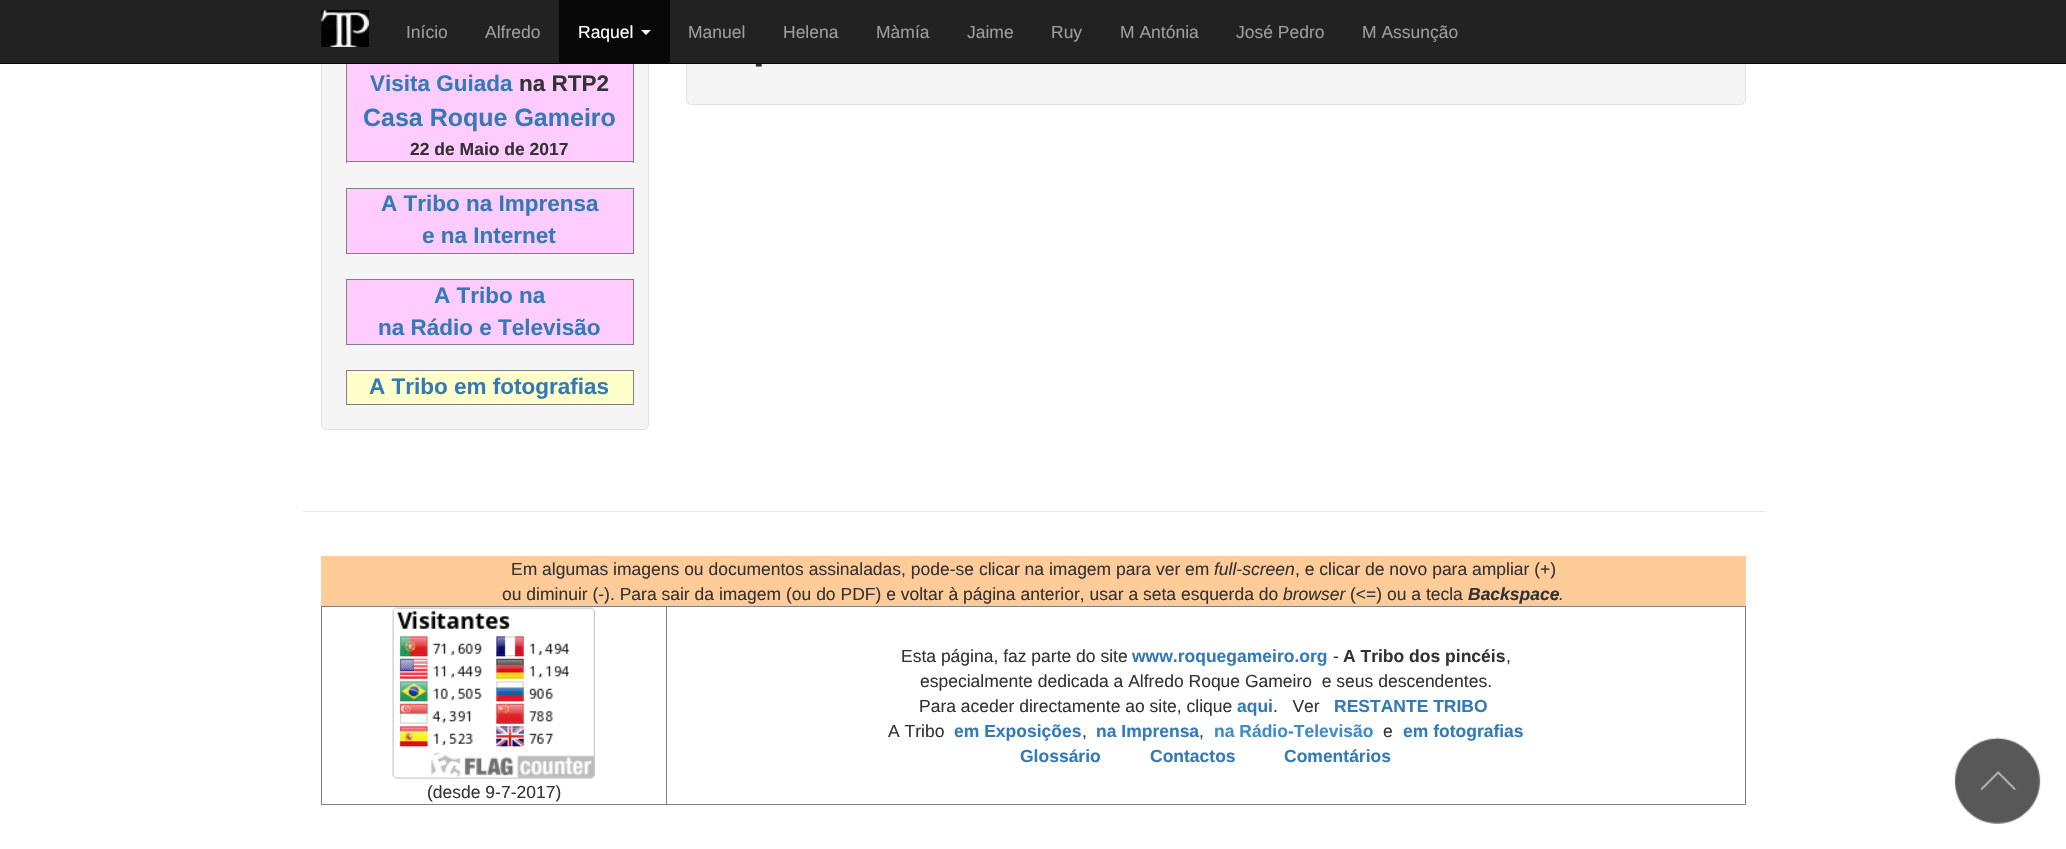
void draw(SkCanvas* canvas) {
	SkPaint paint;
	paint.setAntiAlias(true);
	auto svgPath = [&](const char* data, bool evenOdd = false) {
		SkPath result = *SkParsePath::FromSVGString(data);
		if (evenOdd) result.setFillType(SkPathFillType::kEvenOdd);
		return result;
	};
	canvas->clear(0xffffffff);
	paint.setColor(0xfff5f5f5);
	canvas->drawRoundRect(SkRect::MakeXYWH(686.5, -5.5, 1059, 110), 4.5, 4.5, paint);
	paint.setStroke(true);
	paint.setStrokeWidth(1);
	paint.setColor(0xffe3e3e3);
	canvas->drawRoundRect(SkRect::MakeXYWH(686.5, -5.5, 1059, 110), 4.5, 4.5, paint);
	paint.setStroke(false);
	paint.setColor(0xfff5f5f5);
	canvas->drawRoundRect(SkRect::MakeXYWH(321.5, -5.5, 327, 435), 4.5, 4.5, paint);
	paint.setStroke(true);
	paint.setColor(0xffe3e3e3);
	canvas->drawRoundRect(SkRect::MakeXYWH(321.5, -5.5, 327, 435), 4.5, 4.5, paint);
	paint.setStroke(false);
	paint.setColor(0xff222222);
	canvas->drawRect(SkRect::MakeXYWH(0, 0, 2066, 63), paint);
	SkFont f1(fontMgr->matchFamilyStyle("Liberation Sans", SkFontStyle::Bold()), 22.5);
	f1.setSubpixel(true);
	paint.setColor(0xff333333);
	canvas->drawString("-", 755, 71, f1, paint);
	paint.setColor(0xff080808);
	canvas->drawRect(SkRect::MakeXYWH(0, 63, 2066, 1), paint);
	canvas->drawImageRect(SkImages::DeferredFromEncodedData(SkData::MakeFromFileName("img1.png")), SkRect::MakeXYWH(321, 10, 48, 37), SkSamplingOptions());
	SkFont f2(fontMgr->matchFamilyStyle("Liberation Sans", SkFontStyle::Normal()), 17.5);
	f2.setSubpixel(true);
	paint.setColor(0xff9d9d9d);
	canvas->drawString("Início", 406, 38, f2, paint);
	canvas->drawString("Alfredo", 485, 38, f2, paint);
	paint.setColor(0xff080808);
	canvas->drawRect(SkRect::MakeXYWH(559, 0, 111, 63), paint);
	paint.setColor(0xffffffff);
	canvas->drawString("Raquel", 578, 38, f2, paint);
	canvas->drawPath(svgPath("M641 30H651L646 35Z"), paint);
	paint.setColor(0xff9d9d9d);
	canvas->drawString("Manuel", 688, 38, f2, paint);
	canvas->drawString("Helena", 783, 38, f2, paint);
	canvas->drawString("Màmía", 876, 38, f2, paint);
	canvas->drawString("Jaime", 967, 38, f2, paint);
	canvas->drawString("Ruy", 1051, 38, f2, paint);
	canvas->drawString("M Antónia", 1120, 38, f2, paint);
	canvas->drawString("José Pedro", 1236, 38, f2, paint);
	canvas->drawString("M Assunção", 1362, 38, f2, paint);
	paint.setColor(0xff808080);
	canvas->drawRect(SkRect::MakeXYWH(633, 64, 1, 99), paint);
	canvas->drawRect(SkRect::MakeXYWH(346, 161, 288, 1), paint);
	canvas->drawRect(SkRect::MakeXYWH(346, 64, 1, 99), paint);
	paint.setColor(0xffffccff);
	canvas->drawRect(SkRect::MakeXYWH(347, 64, 286, 97), paint);
	paint.setColor(0xff337ab7);
	canvas->drawString("Visita Guiada", 370, 91, f1, paint);
	paint.setColor(0xff333333);
	canvas->drawString("na RTP2", 519, 91, f1, paint);
	SkFont f3(fontMgr->matchFamilyStyle("Liberation Sans", SkFontStyle::Bold()), 25);
	f3.setSubpixel(true);
	paint.setColor(0xff337ab7);
	canvas->drawString("Casa Roque Gameiro", 363, 126, f3, paint);
	SkFont f4(fontMgr->matchFamilyStyle("Liberation Sans", SkFontStyle::Bold()), 17.5);
	f4.setSubpixel(true);
	paint.setColor(0xff333333);
	canvas->drawString("22 de Maio de 2017", 410, 155, f4, paint);
	paint.setColor(0xff808080);
	canvas->drawRect(SkRect::MakeXYWH(346, 188, 288, 1), paint);
	canvas->drawRect(SkRect::MakeXYWH(633, 188, 1, 66), paint);
	canvas->drawRect(SkRect::MakeXYWH(346, 253, 288, 1), paint);
	canvas->drawRect(SkRect::MakeXYWH(346, 188, 1, 66), paint);
	paint.setColor(0xffffccff);
	canvas->drawRect(SkRect::MakeXYWH(347, 189, 286, 64), paint);
	paint.setColor(0xff337ab7);
	canvas->drawString("A Tribo na Imprensa", 381, 211, f1, paint);
	canvas->drawString("e na Internet", 422, 243, f1, paint);
	paint.setColor(0xff808080);
	canvas->drawRect(SkRect::MakeXYWH(346, 279, 288, 1), paint);
	canvas->drawRect(SkRect::MakeXYWH(633, 279, 1, 66), paint);
	canvas->drawRect(SkRect::MakeXYWH(346, 344, 288, 1), paint);
	canvas->drawRect(SkRect::MakeXYWH(346, 279, 1, 66), paint);
	paint.setColor(0xffffccff);
	canvas->drawRect(SkRect::MakeXYWH(347, 280, 286, 64), paint);
	paint.setColor(0xff337ab7);
	canvas->drawString("A Tribo na", 434, 303, f1, paint);
	canvas->drawString("na Rádio e Televisão", 378, 335, f1, paint);
	paint.setColor(0xff808080);
	canvas->drawRect(SkRect::MakeXYWH(346, 370, 288, 1), paint);
	canvas->drawRect(SkRect::MakeXYWH(633, 370, 1, 35), paint);
	canvas->drawRect(SkRect::MakeXYWH(346, 404, 288, 1), paint);
	canvas->drawRect(SkRect::MakeXYWH(346, 370, 1, 35), paint);
	paint.setColor(0xffffffcc);
	canvas->drawRect(SkRect::MakeXYWH(347, 371, 286, 33), paint);
	paint.setColor(0xff337ab7);
	canvas->drawString("A Tribo em fotografias", 369, 394, f1, paint);
	paint.setColor(0xffe5e5e5);
	canvas->drawRect(SkRect::MakeXYWH(303, 511, 1462, 1), paint);
	paint.setColor(0xffffcc99);
	canvas->drawRect(SkRect::MakeXYWH(321, 556, 1425, 50), paint);
	paint.setColor(0xff333333);
	canvas->drawString("Em algumas imagens ou documentos assinaladas, pode-se clicar na imagem para ver em", 511, 575, f2, paint);
	SkFont f5(fontMgr->matchFamilyStyle("Liberation Sans", SkFontStyle::Italic()), 17.5);
	f5.setSubpixel(true);
	canvas->drawString("full-screen", 1214, 575, f5, paint);
	canvas->drawString(", e clicar de novo para ampliar (+)", 1295, 575, f2, paint);
	canvas->drawString("ou diminuir (-). Para sair da imagem (ou do PDF) e voltar à página anterior, usar a seta esquerda do", 502, 600, f2, paint);
	canvas->drawString("browser", 1283, 600, f5, paint);
	canvas->drawString("(<=) ou a tecla", 1350, 600, f2, paint);
	SkFont f6(fontMgr->matchFamilyStyle("Liberation Sans", SkFontStyle::BoldItalic()), 17.5);
	f6.setSubpixel(true);
	canvas->drawString("Backspace", 1468, 600, f6, paint);
	canvas->drawString(".", 1559, 600, f5, paint);
	paint.setColor(0xff808080);
	canvas->drawRect(SkRect::MakeXYWH(321, 606, 1425, 1), paint);
	canvas->drawRect(SkRect::MakeXYWH(1745, 606, 1, 199), paint);
	canvas->drawRect(SkRect::MakeXYWH(321, 804, 1425, 1), paint);
	canvas->drawRect(SkRect::MakeXYWH(321, 606, 1, 199), paint);
	canvas->drawRect(SkRect::MakeXYWH(666, 606, 1, 199), paint);
	paint.setColor(0xff333333);
	canvas->drawString("Esta página, faz parte do site", 901, 662, f2, paint);
	paint.setColor(0xff337ab7);
	canvas->drawString("www.roquegameiro.org", 1132, 662, f4, paint);
	paint.setColor(0xff333333);
	canvas->drawString("-", 1333, 662, f2, paint);
	canvas->drawString("A Tribo dos pincéis", 1343, 662, f4, paint);
	canvas->drawString(",", 1506, 662, f2, paint);
	canvas->drawString("especialmente dedicada a Alfredo Roque Gameiro  e seus descendentes.", 920, 687, f2, paint);
	canvas->drawString("Para aceder directamente ao site, clique", 919, 712, f2, paint);
	paint.setColor(0xff337ab7);
	canvas->drawString("aqui", 1237, 712, f4, paint);
	paint.setColor(0xff333333);
	canvas->drawString(".   Ver", 1273, 712, f2, paint);
	paint.setColor(0xff337ab7);
	canvas->drawString("RESTANTE TRIBO", 1334, 712, f4, paint);
	paint.setColor(0xff333333);
	canvas->drawString("A Tribo", 888, 737, f2, paint);
	paint.setColor(0xff337ab7);
	canvas->drawString("em Exposições", 954, 737, f4, paint);
	paint.setColor(0xff333333);
	canvas->drawString(",", 1082, 737, f2, paint);
	paint.setColor(0xff337ab7);
	canvas->drawString("na Imprensa", 1096, 737, f4, paint);
	paint.setColor(0xff333333);
	canvas->drawString(",", 1199, 737, f2, paint);
	paint.setColor(0xff428bca);
	canvas->drawString("na Rádio-Televisão", 1214, 737, f4, paint);
	paint.setColor(0xff333333);
	canvas->drawString("e", 1383, 737, f2, paint);
	paint.setColor(0xff337ab7);
	canvas->drawString("em fotografias", 1403, 737, f4, paint);
	canvas->drawString("Glossário", 1020, 762, f4, paint);
	canvas->drawString("Contactos", 1150, 762, f4, paint);
	canvas->drawString("Comentários", 1284, 762, f4, paint);
	canvas->drawImageRect(SkImages::DeferredFromEncodedData(SkData::MakeFromFileName("img2.png")), SkRect::MakeXYWH(392, 607, 203, 172), SkSamplingOptions());
	paint.setColor(0xff333333);
	canvas->drawString("(desde 9-7-2017)", 427, 798, f2, paint);
	canvas->drawImageRect(SkImages::DeferredFromEncodedData(SkData::MakeFromFileName("img3.png")), SkRect::MakeXYWH(1954, 737, 87, 87), SkSamplingOptions());
}
